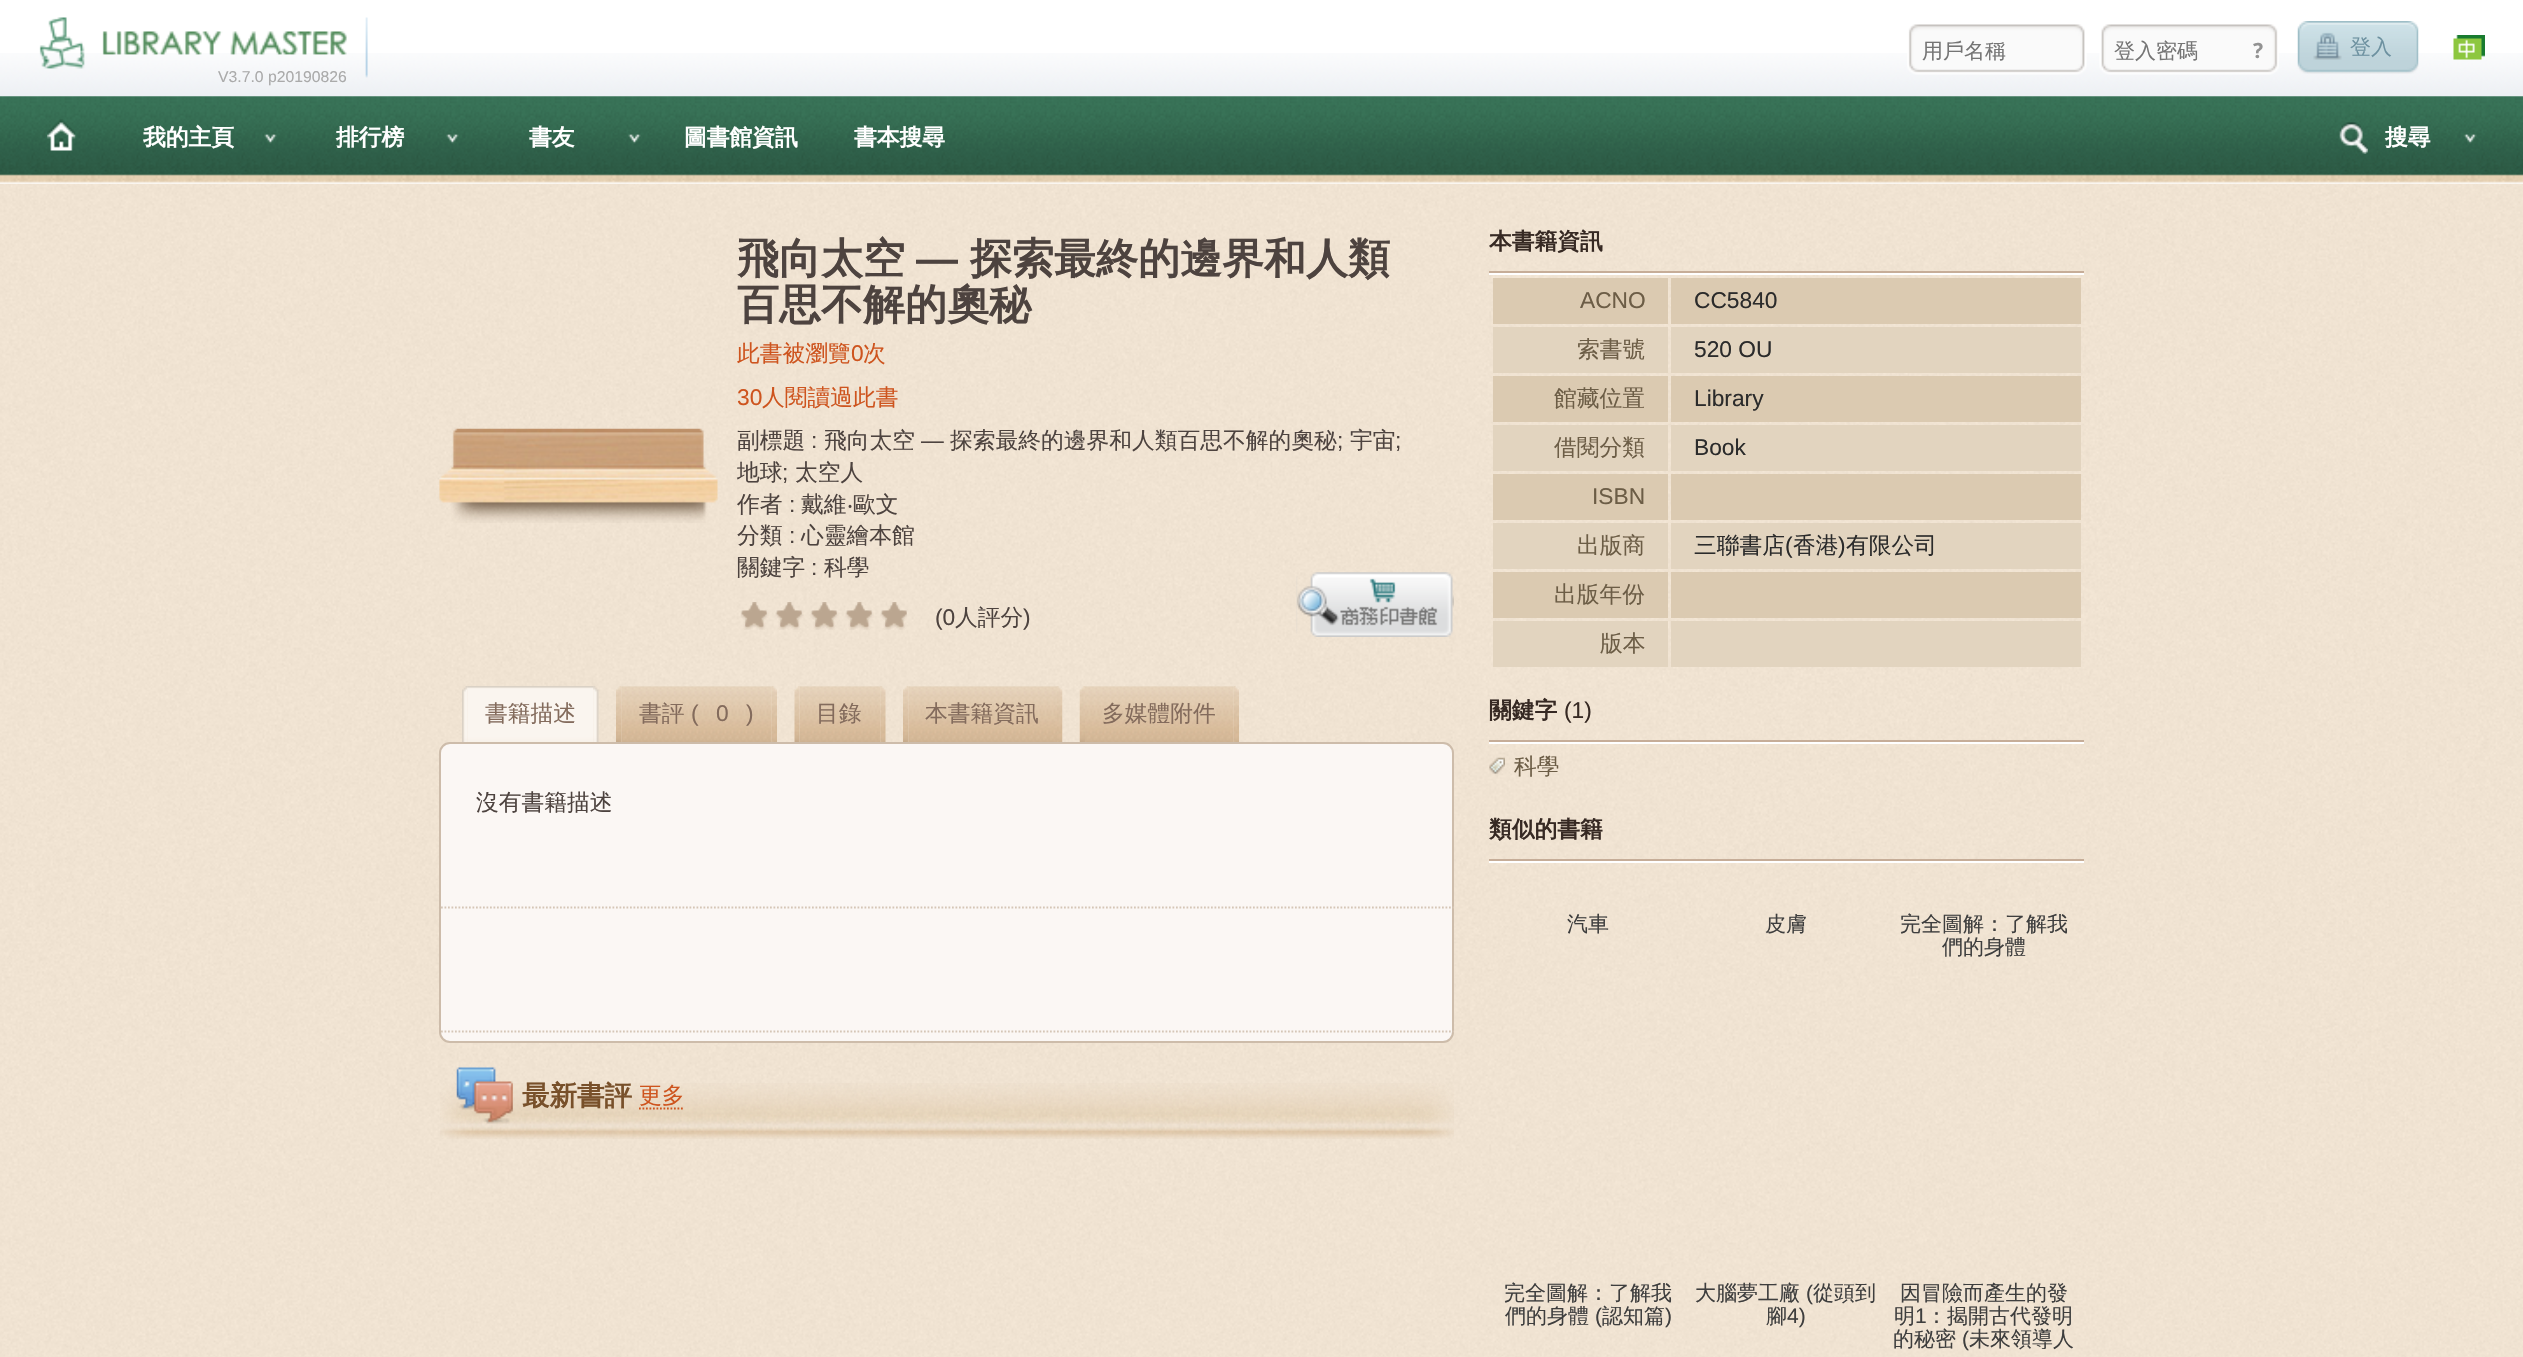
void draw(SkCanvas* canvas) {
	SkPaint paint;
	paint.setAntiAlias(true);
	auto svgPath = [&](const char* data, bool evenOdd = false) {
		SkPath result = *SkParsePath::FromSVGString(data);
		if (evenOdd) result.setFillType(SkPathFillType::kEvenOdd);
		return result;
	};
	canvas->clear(0xffffffff);
	canvas->drawImageRect(SkImages::DeferredFromEncodedData(SkData::MakeFromFileName("img1.png")), SkRect::MakeXYWH(0, 53, 2523, 44), SkSamplingOptions());
	canvas->drawImageRect(SkImages::DeferredFromEncodedData(SkData::MakeFromFileName("img2.png")), SkRect::MakeXYWH(1907, 24, 180, 51), SkSamplingOptions());
	SkFont f1(fontMgr->matchFamilyStyle("WenQuanYi Zen Hei", SkFontStyle(500, SkFontStyle::kNormal_Width, SkFontStyle::kUpright_Slant)), 21);
	f1.setSubpixel(true);
	paint.setColor(0xff757575);
	canvas->drawString("用戶名稱", 1922, 58, f1, paint);
	canvas->drawImageRect(SkImages::DeferredFromEncodedData(SkData::MakeFromFileName("img3.png")), SkRect::MakeXYWH(2099, 24, 180, 51), SkSamplingOptions());
	canvas->drawString("登入密碼", 2114, 58, f1, paint);
	SkFont f2(fontMgr->matchFamilyStyle("Noto Sans", SkFontStyle::Bold()), 21);
	f2.setSubpixel(true);
	paint.setColor(0xff929292);
	canvas->drawString("?", 2253, 58, f2, paint);
	canvas->drawImageRect(SkImages::DeferredFromEncodedData(SkData::MakeFromFileName("img4.png")), SkRect::MakeXYWH(2297, 21, 122, 53), SkSamplingOptions());
	paint.setColor(0xff6d91a0);
	canvas->drawString("登入", 2350, 54, f1, paint);
	canvas->drawImageRect(SkImages::DeferredFromEncodedData(SkData::MakeFromFileName("img5.png")), SkRect::MakeXYWH(2453, 35, 32, 25), SkSamplingOptions());
	canvas->drawImageRect(SkImages::DeferredFromEncodedData(SkData::MakeFromFileName("img6.png")), SkRect::MakeXYWH(39, 17, 329, 61), SkSamplingOptions());
	SkFont f3(fontMgr->matchFamilyStyle("Liberation Sans", SkFontStyle::Normal()), 15.75);
	f3.setSubpixel(true);
	paint.setColor(0xffaaaaaa);
	canvas->drawString("V3.7.0 p20190826", 218, 82, f3, paint);
	canvas->drawImageRect(SkImages::DeferredFromEncodedData(SkData::MakeFromFileName("img7.png")), SkRect::MakeXYWH(0, 96, 2523, 88), SkSamplingOptions());
	canvas->drawImageRect(SkImages::DeferredFromEncodedData(SkData::MakeFromFileName("img8.png")), SkRect::MakeXYWH(47, 119, 29, 32), SkSamplingOptions());
	canvas->drawImageRect(SkImages::DeferredFromEncodedData(SkData::MakeFromFileName("img9.png")), SkRect::MakeXYWH(264, 134, 13, 10), SkSamplingOptions());
	SkFont f4(fontMgr->matchFamilyStyle("WenQuanYi Zen Hei", SkFontStyle::Bold()), 22.75);
	f4.setSubpixel(true);
	paint.setColor(0xffffffff);
	canvas->drawString("我的主頁", 143, 145, f4, paint);
	canvas->drawImageRect(SkImages::DeferredFromEncodedData(SkData::MakeFromFileName("img10.png")), SkRect::MakeXYWH(446, 134, 13, 10), SkSamplingOptions());
	canvas->drawString("排行榜", 336, 145, f4, paint);
	canvas->drawImageRect(SkImages::DeferredFromEncodedData(SkData::MakeFromFileName("img11.png")), SkRect::MakeXYWH(628, 134, 13, 10), SkSamplingOptions());
	canvas->drawString("書友", 529, 145, f4, paint);
	canvas->drawString("圖書館資訊", 684, 145, f4, paint);
	canvas->drawString("書本搜尋", 854, 145, f4, paint);
	canvas->drawImageRect(SkImages::DeferredFromEncodedData(SkData::MakeFromFileName("img12.png")), SkRect::MakeXYWH(2463, 134, 14, 10), SkSamplingOptions());
	canvas->drawImageRect(SkImages::DeferredFromEncodedData(SkData::MakeFromFileName("img13.png")), SkRect::MakeXYWH(2339, 122, 29, 32), SkSamplingOptions());
	canvas->drawString("搜尋", 2385, 145, f4, paint);
	canvas->drawImageRect(SkImages::DeferredFromEncodedData(SkData::MakeFromFileName("img14.png")), SkRect::MakeXYWH(0, 184, 2523, 1173), SkSamplingOptions());
	canvas->drawImageRect(SkImages::DeferredFromEncodedData(SkData::MakeFromFileName("img15.png")), SkRect::MakeXYWH(439, 428, 279, 95), SkSamplingOptions());
	SkFont f5(fontMgr->matchFamilyStyle("WenQuanYi Zen Hei", SkFontStyle::Bold()), 42);
	f5.setSubpixel(true);
	paint.setColor(0xff4d433f);
	canvas->drawString("飛向太空", 737, 273, f5, paint);
	SkFont f6(fontMgr->matchFamilyStyle("Liberation Sans", SkFontStyle::Bold()), 42);
	f6.setSubpixel(true);
	canvas->drawString("—", 916, 273, f6, paint);
	canvas->drawString("探索最終的邊界和人類", 970, 273, f5, paint);
	canvas->drawString("百思不解的奧秘", 737, 319, f5, paint);
	SkFont f7(fontMgr->matchFamilyStyle("WenQuanYi Zen Hei", SkFontStyle(500, SkFontStyle::kNormal_Width, SkFontStyle::kUpright_Slant)), 22.75);
	f7.setSubpixel(true);
	paint.setColor(0xffce541e);
	canvas->drawString("此書被瀏覽", 737, 361, f7, paint);
	SkFont f8(fontMgr->matchFamilyStyle("Liberation Sans", SkFontStyle::Normal()), 22.75);
	f8.setSubpixel(true);
	canvas->drawString("0", 851, 361, f8, paint);
	canvas->drawString("次", 863, 361, f7, paint);
	canvas->drawString("30", 737, 405, f8, paint);
	canvas->drawString("人閱讀過此書", 762, 405, f7, paint);
	paint.setColor(0xff4d433f);
	canvas->drawString("副標題", 737, 448, f7, paint);
	canvas->drawString(":", 811, 448, f8, paint);
	canvas->drawString("飛向太空", 824, 448, f7, paint);
	canvas->drawString("—", 921, 448, f8, paint);
	canvas->drawString("探索最終的邊界和人類百思不解的奧秘", 950, 448, f7, paint);
	canvas->drawString(";", 1337, 448, f8, paint);
	canvas->drawString("宇宙", 1350, 448, f7, paint);
	canvas->drawString(";", 1395, 448, f8, paint);
	canvas->drawString("地球", 737, 480, f7, paint);
	canvas->drawString(";", 782, 480, f8, paint);
	canvas->drawString("太空人", 795, 480, f7, paint);
	canvas->drawString("作者", 737, 512, f7, paint);
	canvas->drawString(":", 789, 512, f8, paint);
	canvas->drawString("戴維", 801, 512, f7, paint);
	SkFont f9(fontMgr->matchFamilyStyle("Noto Sans", SkFontStyle::Normal()), 22.75);
	f9.setSubpixel(true);
	canvas->drawString("‧", 847, 512, f9, paint);
	canvas->drawString("歐文", 853, 512, f7, paint);
	canvas->drawString("分類", 737, 543, f7, paint);
	canvas->drawString(":", 789, 543, f8, paint);
	canvas->drawString("心靈繪本館", 801, 543, f7, paint);
	canvas->drawString("關鍵字", 737, 575, f7, paint);
	canvas->drawString(":", 811, 575, f8, paint);
	canvas->drawString("科學", 824, 575, f7, paint);
	canvas->drawImageRect(SkImages::DeferredFromEncodedData(SkData::MakeFromFileName("img16.png")), SkRect::MakeXYWH(741, 602, 166, 28), SkSamplingOptions());
	canvas->drawImageRect(SkImages::DeferredFromEncodedData(SkData::MakeFromFileName("img17.png")), SkRect::MakeXYWH(741, 602, 166, 28), SkSamplingOptions());
	canvas->drawString("(0", 935, 625, f8, paint);
	canvas->drawString("人評分", 955, 625, f7, paint);
	canvas->drawString(")", 1023, 625, f8, paint);
	canvas->drawImageRect(SkImages::DeferredFromEncodedData(SkData::MakeFromFileName("img18.png")), SkRect::MakeXYWH(1296, 572, 158, 65), SkSamplingOptions());
	canvas->drawImageRect(SkImages::DeferredFromEncodedData(SkData::MakeFromFileName("img19.png")), SkRect::MakeXYWH(462, 686, 6, 56), SkSamplingOptions());
	canvas->drawImageRect(SkImages::DeferredFromEncodedData(SkData::MakeFromFileName("img20.png")), SkRect::MakeXYWH(467, 686, 127, 56), SkSamplingOptions());
	paint.setColor(0xff836b5c);
	canvas->drawString("書籍描述", 485, 721, f7, paint);
	canvas->drawImageRect(SkImages::DeferredFromEncodedData(SkData::MakeFromFileName("img21.png")), SkRect::MakeXYWH(593, 686, 6, 56), SkSamplingOptions());
	canvas->drawImageRect(SkImages::DeferredFromEncodedData(SkData::MakeFromFileName("img22.png")), SkRect::MakeXYWH(616, 686, 6, 56), SkSamplingOptions());
	canvas->drawImageRect(SkImages::DeferredFromEncodedData(SkData::MakeFromFileName("img23.png")), SkRect::MakeXYWH(621, 686, 151, 56), SkSamplingOptions());
	canvas->drawString("書評", 639, 721, f7, paint);
	canvas->drawString("(", 691, 721, f8, paint);
	canvas->drawString("0", 716, 721, f8, paint);
	canvas->drawString(")", 746, 721, f8, paint);
	canvas->drawImageRect(SkImages::DeferredFromEncodedData(SkData::MakeFromFileName("img24.png")), SkRect::MakeXYWH(771, 686, 6, 56), SkSamplingOptions());
	canvas->drawImageRect(SkImages::DeferredFromEncodedData(SkData::MakeFromFileName("img25.png")), SkRect::MakeXYWH(794, 686, 6, 56), SkSamplingOptions());
	canvas->drawImageRect(SkImages::DeferredFromEncodedData(SkData::MakeFromFileName("img26.png")), SkRect::MakeXYWH(800, 686, 81, 56), SkSamplingOptions());
	canvas->drawString("目錄", 816, 721, f7, paint);
	canvas->drawImageRect(SkImages::DeferredFromEncodedData(SkData::MakeFromFileName("img27.png")), SkRect::MakeXYWH(880, 686, 6, 56), SkSamplingOptions());
	canvas->drawImageRect(SkImages::DeferredFromEncodedData(SkData::MakeFromFileName("img28.png")), SkRect::MakeXYWH(903, 686, 6, 56), SkSamplingOptions());
	canvas->drawImageRect(SkImages::DeferredFromEncodedData(SkData::MakeFromFileName("img29.png")), SkRect::MakeXYWH(908, 686, 149, 56), SkSamplingOptions());
	canvas->drawString("本書籍資訊", 925, 721, f7, paint);
	canvas->drawImageRect(SkImages::DeferredFromEncodedData(SkData::MakeFromFileName("img30.png")), SkRect::MakeXYWH(1057, 686, 6, 56), SkSamplingOptions());
	canvas->drawImageRect(SkImages::DeferredFromEncodedData(SkData::MakeFromFileName("img31.png")), SkRect::MakeXYWH(1079, 686, 6, 56), SkSamplingOptions());
	canvas->drawImageRect(SkImages::DeferredFromEncodedData(SkData::MakeFromFileName("img32.png")), SkRect::MakeXYWH(1085, 686, 149, 56), SkSamplingOptions());
	canvas->drawString("多媒體附件", 1102, 721, f7, paint);
	canvas->drawImageRect(SkImages::DeferredFromEncodedData(SkData::MakeFromFileName("img33.png")), SkRect::MakeXYWH(1233, 686, 6, 56), SkSamplingOptions());
	paint.setColor(0xfffbf7f4);
	canvas->drawRoundRect(SkRect::MakeXYWH(440, 743, 1013, 299), 10, 10, paint);
	paint.setStroke(true);
	paint.setStrokeWidth(2);
	paint.setColor(0xffcdbcaa);
	canvas->drawRoundRect(SkRect::MakeXYWH(440, 743, 1013, 299), 10, 10, paint);
	canvas->save();
	canvas->clipRect(SkRect::MakeXYWH(439, 686, 1015, 357));
	paint.setStrokeWidth(1.8);
	paint.setColor(0xffd5c6b6);
	paint.setPathEffect(SkDashPathEffect::Make({{1.75f, 1.75f}}, 0));
	canvas->drawPath(svgPath("M441 907.5H1456"), paint);
	paint.setPathEffect(nullptr);
	canvas->restore();
	paint.setStroke(false);
	paint.setColor(0xff4d433f);
	canvas->drawString("沒有書籍描述", 476, 810, f7, paint);
	canvas->save();
	canvas->clipRect(SkRect::MakeXYWH(439, 686, 1015, 357));
	paint.setStroke(true);
	paint.setColor(0xffd5c6b6);
	paint.setPathEffect(SkDashPathEffect::Make({{1.75f, 1.75f}}, 0));
	canvas->drawPath(svgPath("M441 1031.5H1456"), paint);
	paint.setPathEffect(nullptr);
	canvas->restore();
	canvas->drawImageRect(SkImages::DeferredFromEncodedData(SkData::MakeFromFileName("img34.png")), SkRect::MakeXYWH(440, 1083, 1014, 56), SkSamplingOptions());
	canvas->drawImageRect(SkImages::DeferredFromEncodedData(SkData::MakeFromFileName("img35.png")), SkRect::MakeXYWH(456, 1067, 57, 57), SkSamplingOptions());
	SkFont f10(fontMgr->matchFamilyStyle("WenQuanYi Zen Hei", SkFontStyle::Bold()), 27.5);
	f10.setSubpixel(true);
	paint.setStroke(false);
	paint.setColor(0xff78502a);
	canvas->drawString("最新書評", 522, 1105, f10, paint);
	paint.setColor(0xffce541e);
	canvas->drawString("更多", 639, 1103, f7, paint);
	paint.setStroke(true);
	paint.setPathEffect(SkDashPathEffect::Make({{1.75f, 1.75f}}, 0));
	canvas->drawPath(svgPath("M639 1108.5H684"), paint);
	paint.setPathEffect(nullptr);
	paint.setStroke(false);
	paint.setColor(0xffc6ad98);
	canvas->drawRect(SkRect::MakeXYWH(1489, 271, 595, 2), paint);
	paint.setColor(0xff362923);
	canvas->drawString("本書籍資訊", 1489, 249, f4, paint);
	paint.setColor(0xffffffff);
	canvas->drawRect(SkRect::MakeXYWH(1489, 273, 595, 2), paint);
	paint.setColor(0xffdbcab1);
	canvas->drawRect(SkRect::MakeXYWH(1493, 278, 175, 46), paint);
	paint.setColor(0xff6c5d46);
	canvas->drawString("ACNO", 1580, 308, f8, paint);
	paint.setColor(0xffdbcab1);
	canvas->drawRect(SkRect::MakeXYWH(1671, 278, 410, 46), paint);
	paint.setColor(0xff2b2b2b);
	canvas->drawString("CC5840", 1694, 308, f8, paint);
	paint.setColor(0xffe2d4bf);
	canvas->drawRect(SkRect::MakeXYWH(1493, 327, 175, 46), paint);
	paint.setColor(0xff6c5d46);
	canvas->drawString("索書號", 1577, 357, f7, paint);
	paint.setColor(0xffe2d4bf);
	canvas->drawRect(SkRect::MakeXYWH(1671, 327, 410, 46), paint);
	paint.setColor(0xff2b2b2b);
	canvas->drawString("520 OU", 1694, 357, f8, paint);
	paint.setColor(0xffdbcab1);
	canvas->drawRect(SkRect::MakeXYWH(1493, 376, 175, 46), paint);
	paint.setColor(0xff6c5d46);
	canvas->drawString("館藏位置", 1554, 406, f7, paint);
	paint.setColor(0xffdbcab1);
	canvas->drawRect(SkRect::MakeXYWH(1671, 376, 410, 46), paint);
	paint.setColor(0xff2b2b2b);
	canvas->drawString("Library", 1694, 406, f8, paint);
	paint.setColor(0xffe2d4bf);
	canvas->drawRect(SkRect::MakeXYWH(1493, 425, 175, 46), paint);
	paint.setColor(0xff6c5d46);
	canvas->drawString("借閱分類", 1554, 455, f7, paint);
	paint.setColor(0xffe2d4bf);
	canvas->drawRect(SkRect::MakeXYWH(1671, 425, 410, 46), paint);
	paint.setColor(0xff2b2b2b);
	canvas->drawString("Book", 1694, 455, f8, paint);
	paint.setColor(0xffdbcab1);
	canvas->drawRect(SkRect::MakeXYWH(1493, 474, 175, 46), paint);
	paint.setColor(0xff6c5d46);
	canvas->drawString("ISBN", 1592, 504, f8, paint);
	paint.setColor(0xffdbcab1);
	canvas->drawRect(SkRect::MakeXYWH(1671, 474, 410, 46), paint);
	paint.setColor(0xffe2d4bf);
	canvas->drawRect(SkRect::MakeXYWH(1493, 523, 175, 46), paint);
	paint.setColor(0xff6c5d46);
	canvas->drawString("出版商", 1577, 553, f7, paint);
	paint.setColor(0xffe2d4bf);
	canvas->drawRect(SkRect::MakeXYWH(1671, 523, 410, 46), paint);
	paint.setColor(0xff2b2b2b);
	canvas->drawString("三聯書店", 1694, 553, f7, paint);
	canvas->drawString("(", 1785, 553, f8, paint);
	canvas->drawString("香港", 1793, 553, f7, paint);
	canvas->drawString(")", 1838, 553, f8, paint);
	canvas->drawString("有限公司", 1846, 553, f7, paint);
	paint.setColor(0xffdbcab1);
	canvas->drawRect(SkRect::MakeXYWH(1493, 572, 175, 46), paint);
	paint.setColor(0xff6c5d46);
	canvas->drawString("出版年份", 1554, 602, f7, paint);
	paint.setColor(0xffdbcab1);
	canvas->drawRect(SkRect::MakeXYWH(1671, 572, 410, 46), paint);
	paint.setColor(0xffe2d4bf);
	canvas->drawRect(SkRect::MakeXYWH(1493, 621, 175, 46), paint);
	paint.setColor(0xff6c5d46);
	canvas->drawString("版本", 1600, 651, f7, paint);
	paint.setColor(0xffe2d4bf);
	canvas->drawRect(SkRect::MakeXYWH(1671, 621, 410, 46), paint);
	paint.setColor(0xffc6ad98);
	canvas->drawRect(SkRect::MakeXYWH(1489, 740, 595, 2), paint);
	paint.setColor(0xff362923);
	canvas->drawString("關鍵字", 1489, 718, f4, paint);
	canvas->drawString("(1)", 1564, 718, f8, paint);
	paint.setColor(0xffffffff);
	canvas->drawRect(SkRect::MakeXYWH(1489, 742, 595, 2), paint);
	canvas->drawImageRect(SkImages::DeferredFromEncodedData(SkData::MakeFromFileName("img36.png")), SkRect::MakeXYWH(1489, 757, 16, 17), SkSamplingOptions());
	paint.setColor(0xff6c5d46);
	canvas->drawString("科學", 1514, 774, f7, paint);
	paint.setColor(0xffc6ad98);
	canvas->drawRect(SkRect::MakeXYWH(1489, 859, 595, 2), paint);
	paint.setColor(0xff362923);
	canvas->drawString("類似的書籍", 1489, 837, f4, paint);
	paint.setColor(0xffffffff);
	canvas->drawRect(SkRect::MakeXYWH(1489, 861, 595, 2), paint);
	paint.setColor(0xff3e3e3e);
	canvas->drawString("汽車", 1567, 931, f1, paint);
	canvas->drawString("皮膚", 1765, 931, f1, paint);
	canvas->drawString("完全圖解：了解我", 1900, 931, f1, paint);
	canvas->drawString("們的身體", 1942, 954, f1, paint);
	canvas->drawString("完全圖解：了解我", 1504, 1300, f1, paint);
	canvas->drawString("們的身體", 1505, 1323, f1, paint);
	SkFont f11(fontMgr->matchFamilyStyle("Liberation Sans", SkFontStyle::Normal()), 21);
	f11.setSubpixel(true);
	canvas->drawString("(", 1595, 1323, f11, paint);
	canvas->drawString("認知篇", 1602, 1323, f1, paint);
	canvas->drawString(")", 1665, 1323, f11, paint);
	canvas->drawString("大腦夢工廠", 1695, 1300, f1, paint);
	canvas->drawString("(", 1806, 1300, f11, paint);
	canvas->drawString("從頭到", 1813, 1300, f1, paint);
	canvas->drawString("腳", 1766, 1323, f1, paint);
	canvas->drawString("4)", 1787, 1323, f11, paint);
	canvas->drawString("因冒險而產生的發", 1900, 1300, f1, paint);
	canvas->drawString("明", 1894, 1323, f1, paint);
	canvas->drawString("1", 1915, 1323, f11, paint);
	canvas->drawString("：揭開古代發明", 1926, 1323, f1, paint);
	canvas->drawString("的秘密", 1893, 1346, f1, paint);
	canvas->drawString("(", 1962, 1346, f11, paint);
	canvas->drawString("未來領導人", 1969, 1346, f1, paint);
}
